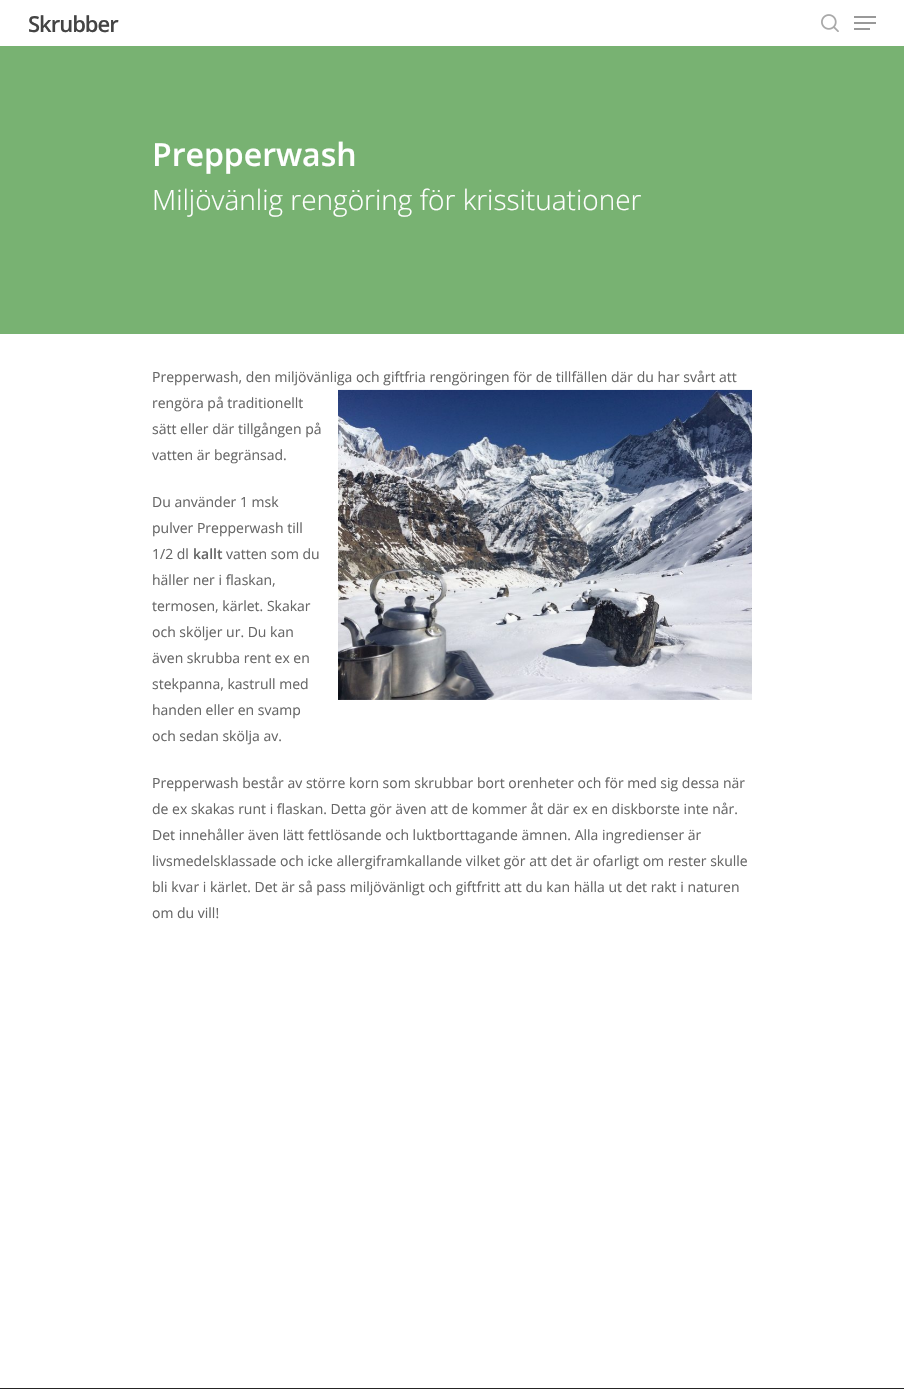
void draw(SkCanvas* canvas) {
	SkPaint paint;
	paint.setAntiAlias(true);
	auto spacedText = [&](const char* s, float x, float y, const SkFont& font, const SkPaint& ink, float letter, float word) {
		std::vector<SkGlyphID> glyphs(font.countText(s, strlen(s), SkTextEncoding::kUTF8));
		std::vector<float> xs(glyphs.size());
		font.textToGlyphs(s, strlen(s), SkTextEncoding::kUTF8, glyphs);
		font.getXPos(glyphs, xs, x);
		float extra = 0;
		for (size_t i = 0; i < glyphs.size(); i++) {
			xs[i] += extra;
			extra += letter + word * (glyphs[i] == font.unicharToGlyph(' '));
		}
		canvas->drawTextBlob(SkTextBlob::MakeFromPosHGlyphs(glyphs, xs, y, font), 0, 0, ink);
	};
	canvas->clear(0xffffffff);
	SkFont f1(fontMgr->matchFamilyStyle("Open Sans", SkFontStyle(600, SkFontStyle::kNormal_Width, SkFontStyle::kUpright_Slant)), 22);
	f1.setSubpixel(true);
	paint.setColor(0xff444444);
	spacedText("Skrubber", 28, 32, f1, paint, -1, 0);
	canvas->drawImageRect(SkImages::DeferredFromEncodedData(SkData::MakeFromFileName("img1.png")), SkRect::MakeXYWH(821, 14, 18, 18), SkSamplingOptions());
	paint.setColor(0xff999999);
	canvas->drawRect(SkRect::MakeXYWH(854, 16, 22, 2), paint);
	canvas->drawRect(SkRect::MakeXYWH(854, 28, 16, 2), paint);
	canvas->drawRect(SkRect::MakeXYWH(854, 22, 22, 2), paint);
	paint.setColor(0xff78b272);
	canvas->drawRect(SkRect::MakeXYWH(0, 46, 904, 288), paint);
	SkFont f2(fontMgr->matchFamilyStyle("Open Sans", SkFontStyle(600, SkFontStyle::kNormal_Width, SkFontStyle::kUpright_Slant)), 32);
	f2.setSubpixel(true);
	paint.setColor(0xffffffff);
	canvas->drawString("Prepperwash", 152, 166, f2, paint);
	SkFont f3(fontMgr->matchFamilyStyle("Open Sans", SkFontStyle(300, SkFontStyle::kNormal_Width, SkFontStyle::kUpright_Slant)), 28);
	f3.setSubpixel(true);
	canvas->drawString("Miljövänlig rengöring för krissituationer", 152, 210, f3, paint);
	SkFont f4(fontMgr->matchFamilyStyle("Open Sans", SkFontStyle::Normal()), 14);
	f4.setSubpixel(true);
	paint.setColor(0xff676767);
	canvas->drawString("Prepperwash, den miljövänliga och giftfria rengöringen för de tillfällen där du har svårt att", 152, 382, f4, paint);
	canvas->drawString("rengöra på traditionellt", 152, 408, f4, paint);
	canvas->drawImageRect(SkImages::DeferredFromEncodedData(SkData::MakeFromFileName("img2.png")), SkRect::MakeXYWH(338, 389, 414, 311), SkSamplingOptions());
	canvas->drawString("sätt eller där tillgången på", 152, 434, f4, paint);
	canvas->drawString("vatten är begränsad.", 152, 460, f4, paint);
	canvas->drawString("Du använder 1 msk", 152, 507, f4, paint);
	canvas->drawString("pulver Prepperwash till", 152, 533, f4, paint);
	canvas->drawString("1/2 dl", 152, 559, f4, paint);
	SkFont f5(fontMgr->matchFamilyStyle("Open Sans", SkFontStyle(600, SkFontStyle::kNormal_Width, SkFontStyle::kUpright_Slant)), 14);
	f5.setSubpixel(true);
	canvas->drawString("kallt", 193, 559, f5, paint);
	canvas->drawString("vatten som du", 226, 559, f4, paint);
	canvas->drawString("häller ner i flaskan,", 152, 585, f4, paint);
	canvas->drawString("termosen, kärlet. Skakar", 152, 611, f4, paint);
	canvas->drawString("och sköljer ur. Du kan", 152, 637, f4, paint);
	canvas->drawString("även skrubba rent ex en", 152, 663, f4, paint);
	canvas->drawString("stekpanna, kastrull med", 152, 689, f4, paint);
	canvas->drawString("handen eller en svamp", 152, 715, f4, paint);
	canvas->drawString("och sedan skölja av.", 152, 741, f4, paint);
	canvas->drawString("Prepperwash består av större korn som skrubbar bort orenheter och för med sig dessa när", 152, 788, f4, paint);
	canvas->drawString("de ex skakas runt i flaskan. Detta gör även att de kommer åt där ex en diskborste inte når.", 152, 814, f4, paint);
	canvas->drawString("Det innehåller även lätt fettlösande och luktborttagande ämnen. Alla ingredienser är", 152, 840, f4, paint);
	canvas->drawString("livsmedelsklassade och icke allergiframkallande vilket gör att det är ofarligt om rester skulle", 152, 866, f4, paint);
	canvas->drawString("bli kvar i kärlet. Det är så pass miljövänligt och giftfritt att du kan hälla ut det rakt i naturen", 152, 892, f4, paint);
	canvas->drawString("om du vill!", 152, 918, f4, paint);
	paint.setColor(0xff252525);
	canvas->drawRect(SkRect::MakeXYWH(0, 1388, 904, 1), paint);
}
